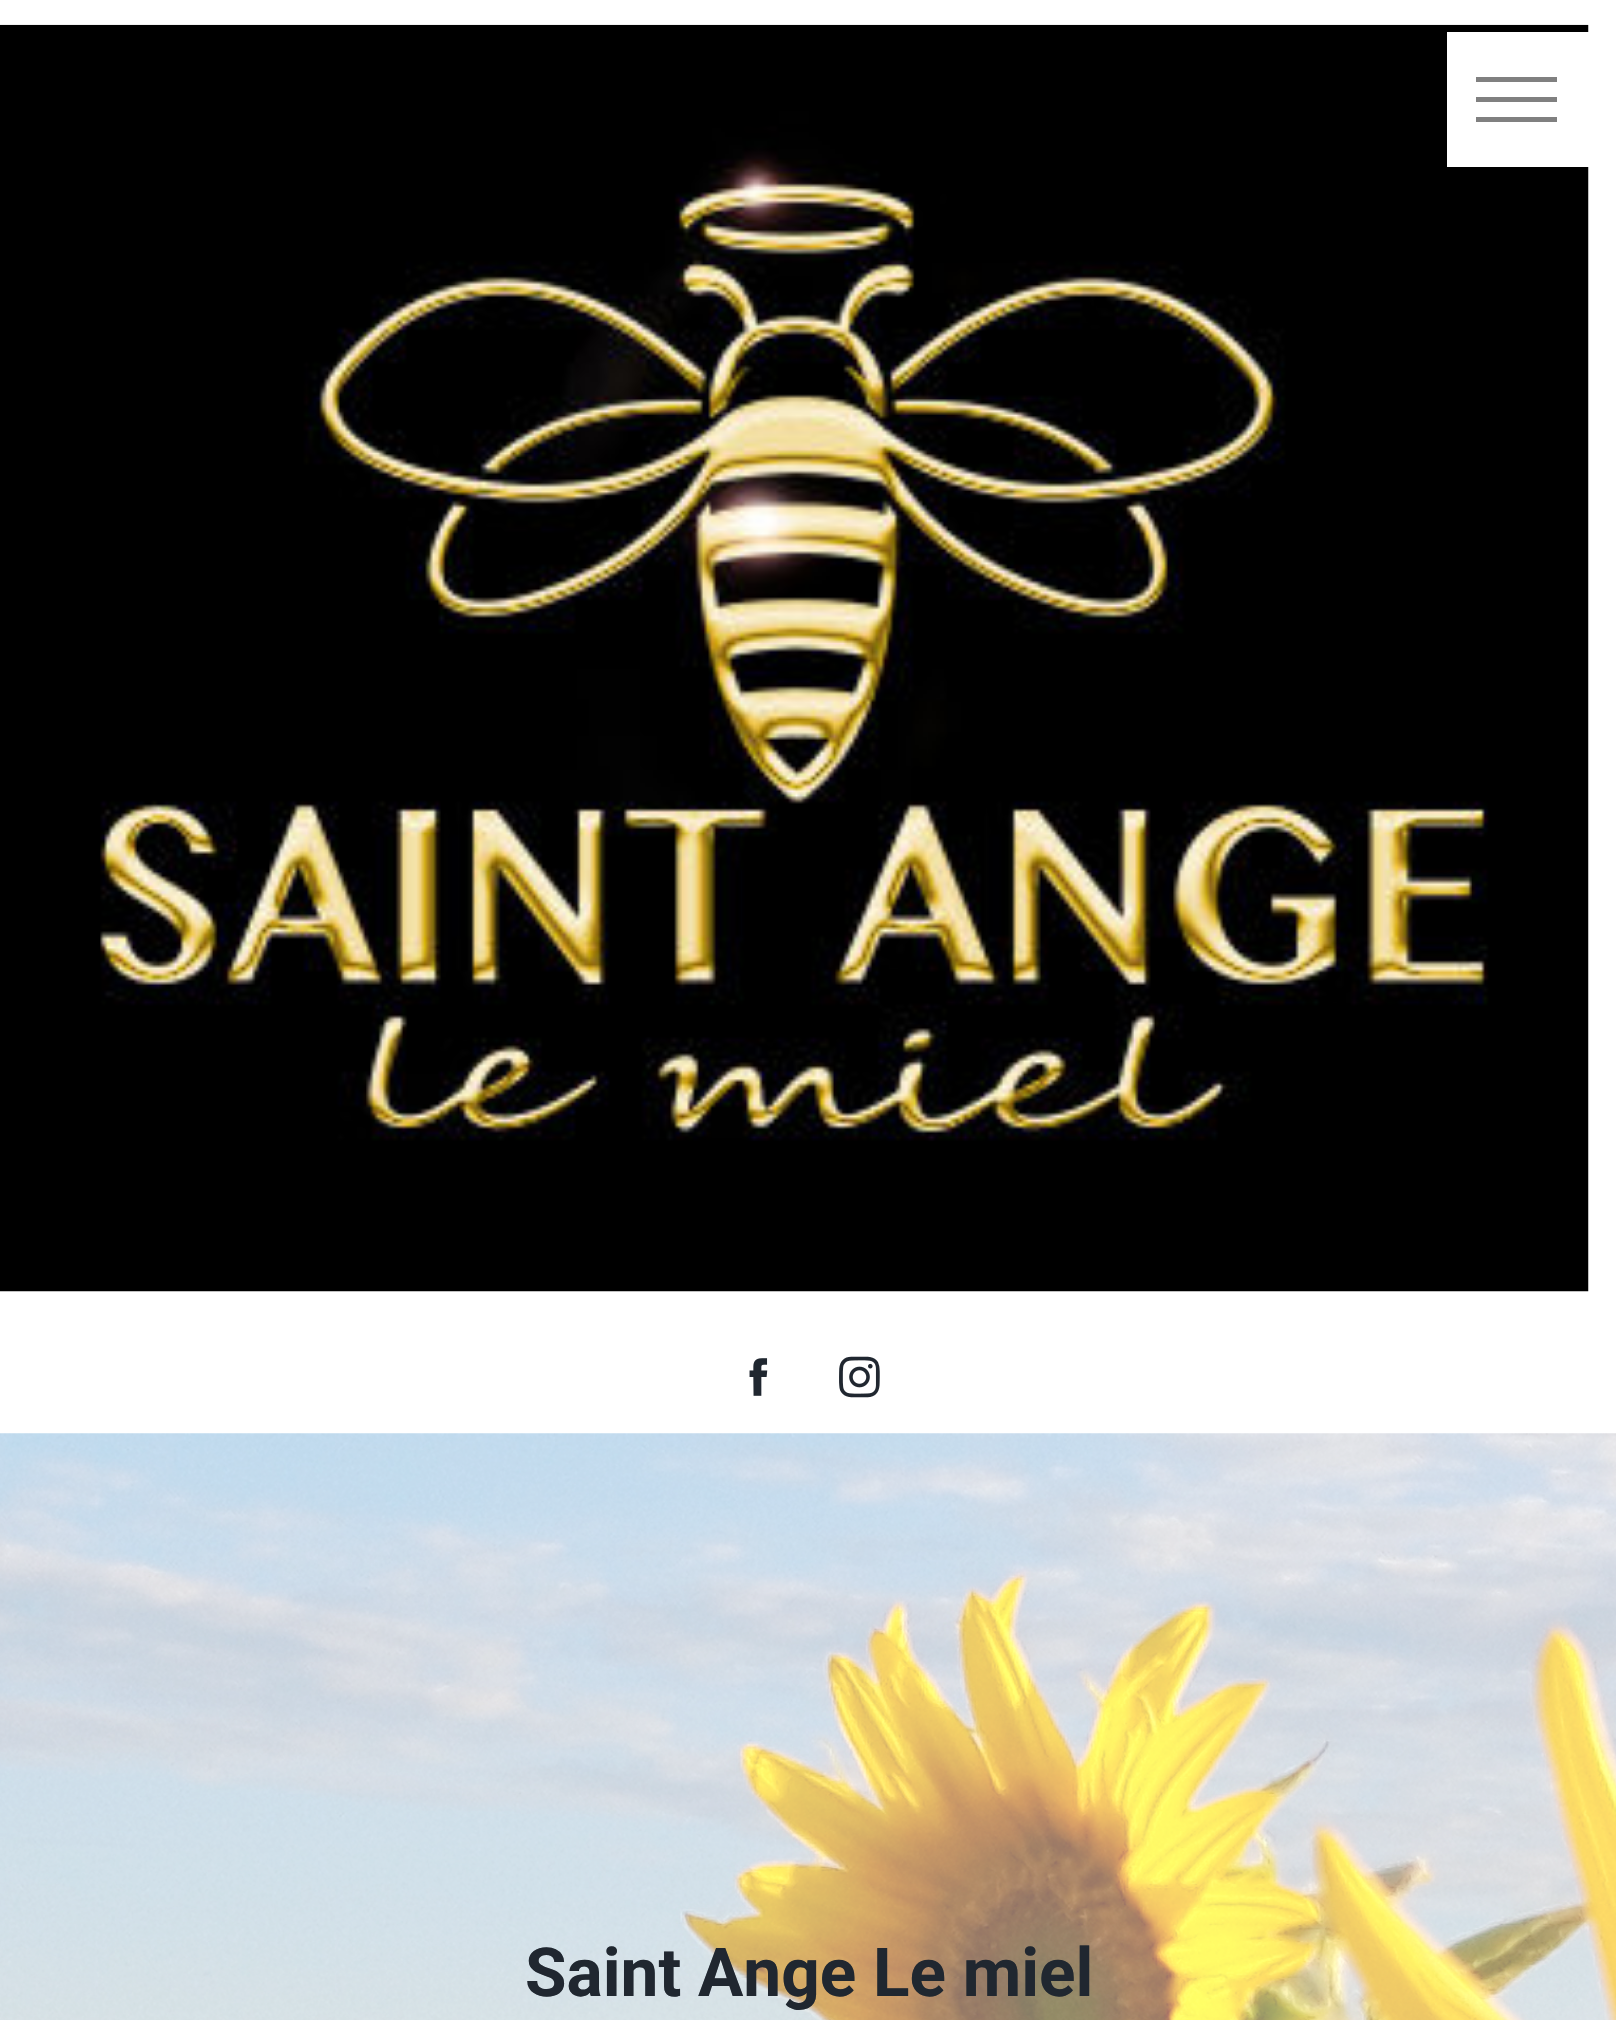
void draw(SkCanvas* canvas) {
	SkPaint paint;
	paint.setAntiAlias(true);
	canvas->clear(0xffffffff);
	canvas->drawImageRect(SkImages::DeferredFromEncodedData(SkData::MakeFromFileName("img1.png")), SkRect::MakeXYWH(0, 24, 1589, 1268), SkSamplingOptions());
	paint.setColor(0xffffffff);
	canvas->drawRect(SkRect::MakeXYWH(1447, 32, 142, 135), paint);
	paint.setColor(0xff808080);
	canvas->drawRect(SkRect::MakeXYWH(1476, 77, 81, 5), paint);
	canvas->drawRect(SkRect::MakeXYWH(1476, 97, 81, 5), paint);
	canvas->drawRect(SkRect::MakeXYWH(1476, 117, 81, 5), paint);
	canvas->drawImageRect(SkImages::DeferredFromEncodedData(SkData::MakeFromFileName("img2.png")), SkRect::MakeXYWH(749, 1358, 19, 38), SkSamplingOptions());
	canvas->drawImageRect(SkImages::DeferredFromEncodedData(SkData::MakeFromFileName("img3.png")), SkRect::MakeXYWH(839, 1356, 41, 42), SkSamplingOptions());
	canvas->drawImageRect(SkImages::DeferredFromEncodedData(SkData::MakeFromFileName("img4.png")), SkRect::MakeXYWH(0, 1433, 1616, 587), SkSamplingOptions());
	SkFont f1(fontMgr->matchFamilyStyle("Roboto", SkFontStyle::Bold()), 67.5);
	f1.setSubpixel(true);
	paint.setColor(0xff202730);
	canvas->drawString("Saint Ange Le miel", 525, 1996, f1, paint);
}
